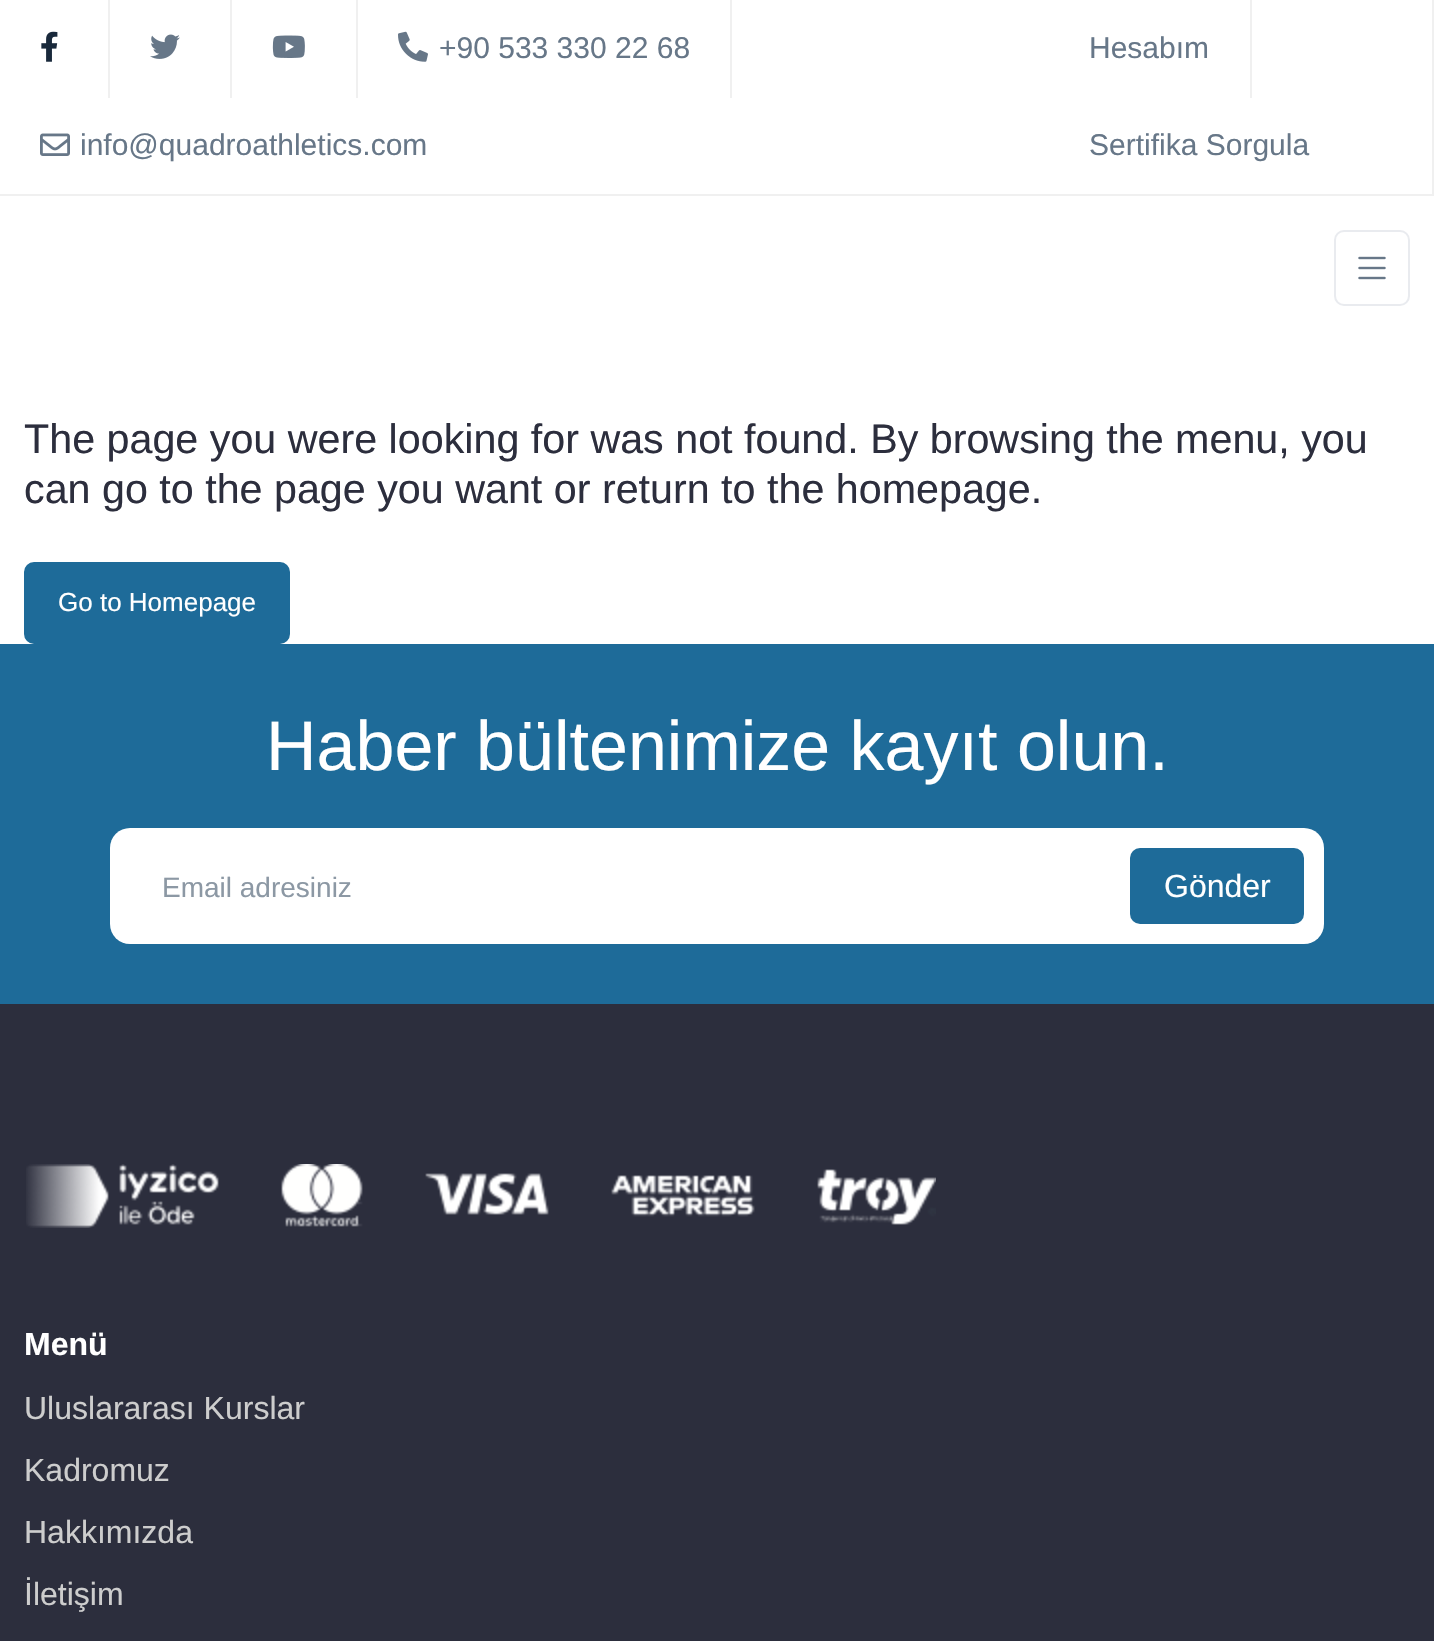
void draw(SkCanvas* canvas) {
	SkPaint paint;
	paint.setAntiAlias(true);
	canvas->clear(0xffffffff);
	paint.setColor(0xfff0f0f0);
	canvas->drawRect(SkRect::MakeXYWH(0, 194, 1434, 2), paint);
	canvas->drawRect(SkRect::MakeXYWH(108, 0, 2, 98), paint);
	canvas->drawImageRect(SkImages::DeferredFromEncodedData(SkData::MakeFromFileName("img1.png")), SkRect::MakeXYWH(41, 31, 17, 31), SkSamplingOptions());
	canvas->drawRect(SkRect::MakeXYWH(230, 0, 2, 98), paint);
	canvas->drawImageRect(SkImages::DeferredFromEncodedData(SkData::MakeFromFileName("img2.png")), SkRect::MakeXYWH(150, 34, 30, 25), SkSamplingOptions());
	canvas->drawRect(SkRect::MakeXYWH(356, 0, 2, 98), paint);
	canvas->drawImageRect(SkImages::DeferredFromEncodedData(SkData::MakeFromFileName("img3.png")), SkRect::MakeXYWH(272, 35, 33, 23), SkSamplingOptions());
	canvas->drawRect(SkRect::MakeXYWH(730, 0, 2, 98), paint);
	canvas->drawImageRect(SkImages::DeferredFromEncodedData(SkData::MakeFromFileName("img4.png")), SkRect::MakeXYWH(398, 31, 30, 31), SkSamplingOptions());
	SkFont f1(fontMgr->matchFamilyStyle("Liberation Sans", SkFontStyle::Normal()), 30);
	f1.setSubpixel(true);
	paint.setColor(0xff677788);
	canvas->drawString("+90 533 330 22 68", 439, 58, f1, paint);
	canvas->drawImageRect(SkImages::DeferredFromEncodedData(SkData::MakeFromFileName("img5.png")), SkRect::MakeXYWH(40, 133, 30, 23), SkSamplingOptions());
	canvas->drawString("info@quadroathletics.com", 80, 155, f1, paint);
	paint.setColor(0xfff0f0f0);
	canvas->drawRect(SkRect::MakeXYWH(1432, 0, 2, 194), paint);
	canvas->drawRect(SkRect::MakeXYWH(1250, 0, 2, 98), paint);
	paint.setColor(0xff677788);
	canvas->drawString("Hesabım", 1089, 58, f1, paint);
	canvas->drawString("Sertifika Sorgula", 1089, 155, f1, paint);
	paint.setStroke(true);
	paint.setStrokeWidth(2);
	paint.setColor(0xffe9ebef);
	canvas->drawRoundRect(SkRect::MakeXYWH(1335, 231, 74, 74), 9, 9, paint);
	canvas->drawImageRect(SkImages::DeferredFromEncodedData(SkData::MakeFromFileName("img6.png")), SkRect::MakeXYWH(1358, 256, 28, 24), SkSamplingOptions());
	SkFont f2(fontMgr->matchFamilyStyle("Liberation Sans", SkFontStyle::Normal()), 41.25);
	f2.setSubpixel(true);
	paint.setStroke(false);
	paint.setColor(0xff2c2e3d);
	canvas->drawString("The page you were looking for was not found. By browsing the menu, you", 24, 453, f2, paint);
	canvas->drawString("can go to the page you want or return to the homepage.", 24, 503, f2, paint);
	paint.setColor(0xff1e6b99);
	canvas->drawRoundRect(SkRect::MakeXYWH(25, 563, 264, 80), 9, 9, paint);
	paint.setStroke(true);
	canvas->drawRoundRect(SkRect::MakeXYWH(25, 563, 264, 80), 9, 9, paint);
	SkFont f3(fontMgr->matchFamilyStyle("Liberation Sans", SkFontStyle::Normal()), 26);
	f3.setSubpixel(true);
	paint.setStroke(false);
	paint.setColor(0xffffffff);
	canvas->drawString("Go to Homepage", 58, 611, f3, paint);
	paint.setColor(0xff1e6b99);
	canvas->drawRect(SkRect::MakeXYWH(0, 644, 1434, 360), paint);
	SkFont f4(fontMgr->matchFamilyStyle("Liberation Sans", SkFontStyle::Normal()), 70);
	f4.setSubpixel(true);
	paint.setColor(0xffffffff);
	canvas->drawString("Haber bültenimize kayıt olun.", 266, 770, f4, paint);
	canvas->drawRoundRect(SkRect::MakeXYWH(110, 828, 1214, 116), 20, 20, paint);
	SkFont f5(fontMgr->matchFamilyStyle("Liberation Sans", SkFontStyle::Normal()), 28);
	f5.setSubpixel(true);
	paint.setColor(0xff8c98a4);
	canvas->drawString("Email adresiniz", 162, 897, f5, paint);
	paint.setColor(0xff1e6b99);
	canvas->drawRoundRect(SkRect::MakeXYWH(1130, 848, 174, 76), 10, 10, paint);
	SkFont f6(fontMgr->matchFamilyStyle("Liberation Sans", SkFontStyle::Normal()), 32);
	f6.setSubpixel(true);
	paint.setColor(0xffffffff);
	canvas->drawString("Gönder", 1164, 897, f6, paint);
	paint.setColor(0xff2c2e3d);
	canvas->drawRect(SkRect::MakeXYWH(0, 1004, 1434, 637), paint);
	canvas->drawImageRect(SkImages::DeferredFromEncodedData(SkData::MakeFromFileName("img7.png")), SkRect::MakeXYWH(26, 1164, 910, 64), SkSamplingOptions());
	SkFont f7(fontMgr->matchFamilyStyle("Liberation Sans", SkFontStyle::Bold()), 32);
	f7.setSubpixel(true);
	paint.setColor(0xffffffff);
	canvas->drawString("Menü", 24, 1355, f7, paint);
	paint.setColor(0xffcdcdcd);
	canvas->drawString("Uluslararası Kurslar", 24, 1419, f6, paint);
	canvas->drawString("Kadromuz", 24, 1481, f6, paint);
	canvas->drawString("Hakkımızda", 24, 1543, f6, paint);
	canvas->drawString("İletişim", 24, 1605, f6, paint);
}
